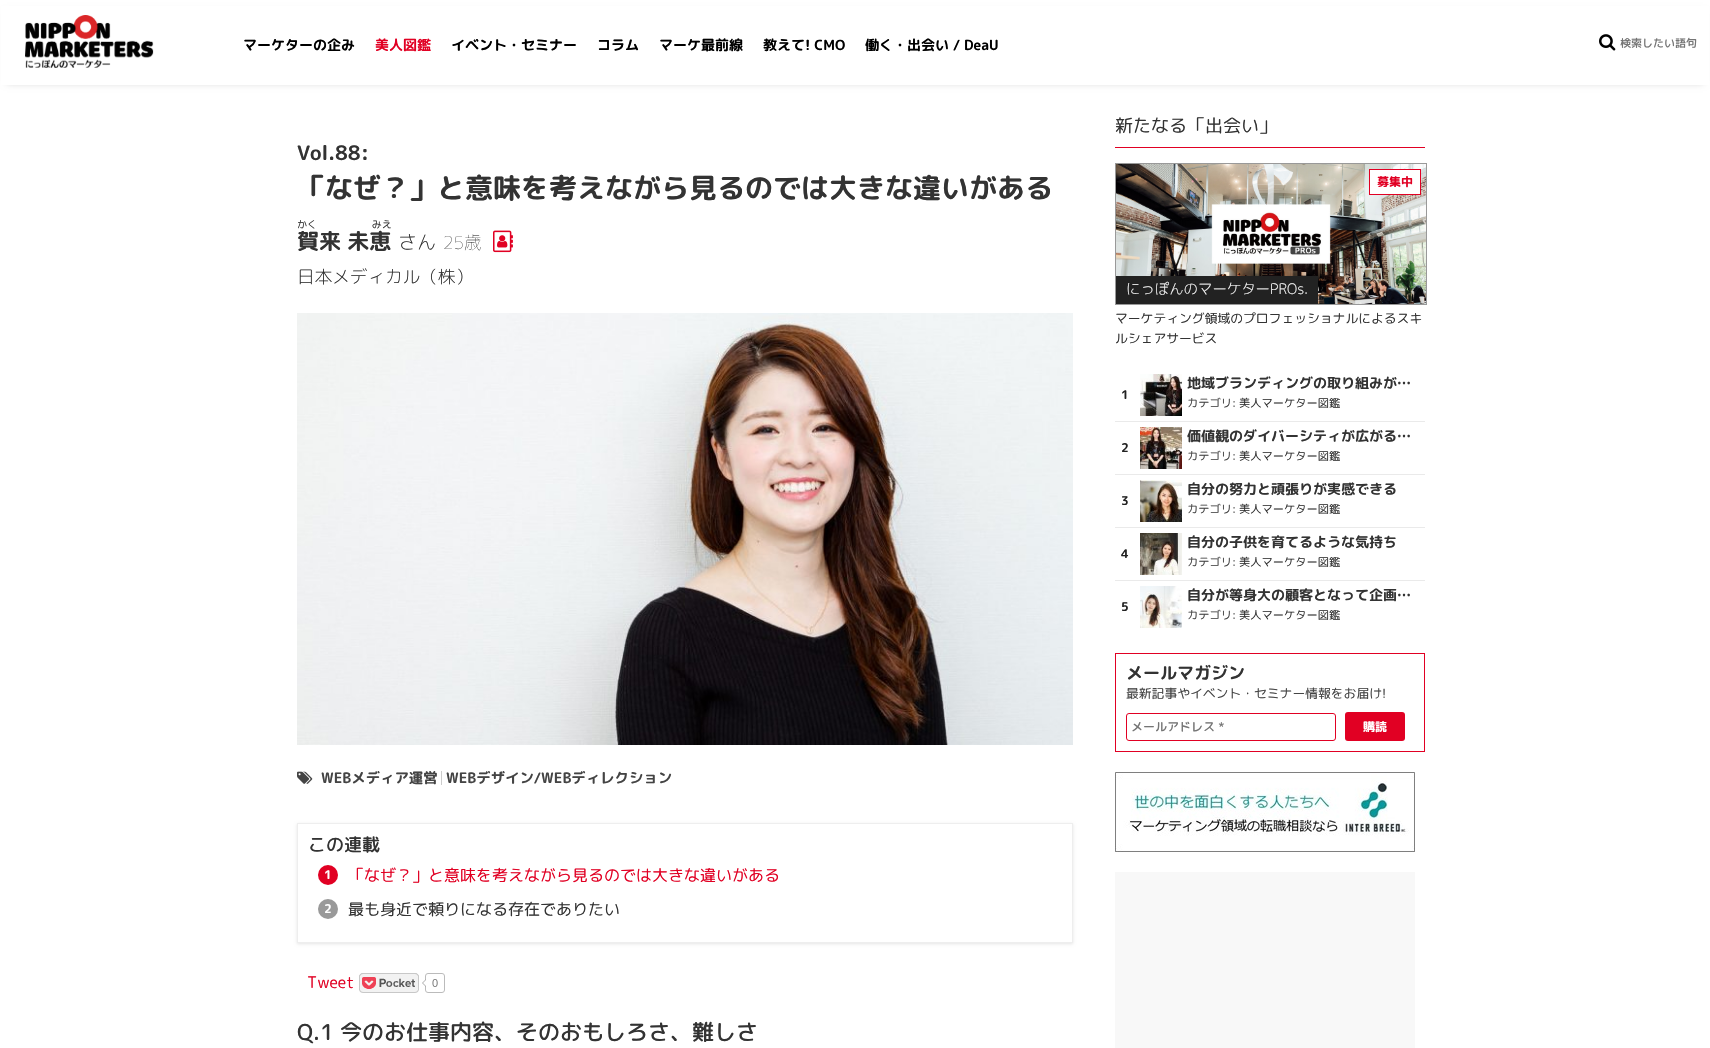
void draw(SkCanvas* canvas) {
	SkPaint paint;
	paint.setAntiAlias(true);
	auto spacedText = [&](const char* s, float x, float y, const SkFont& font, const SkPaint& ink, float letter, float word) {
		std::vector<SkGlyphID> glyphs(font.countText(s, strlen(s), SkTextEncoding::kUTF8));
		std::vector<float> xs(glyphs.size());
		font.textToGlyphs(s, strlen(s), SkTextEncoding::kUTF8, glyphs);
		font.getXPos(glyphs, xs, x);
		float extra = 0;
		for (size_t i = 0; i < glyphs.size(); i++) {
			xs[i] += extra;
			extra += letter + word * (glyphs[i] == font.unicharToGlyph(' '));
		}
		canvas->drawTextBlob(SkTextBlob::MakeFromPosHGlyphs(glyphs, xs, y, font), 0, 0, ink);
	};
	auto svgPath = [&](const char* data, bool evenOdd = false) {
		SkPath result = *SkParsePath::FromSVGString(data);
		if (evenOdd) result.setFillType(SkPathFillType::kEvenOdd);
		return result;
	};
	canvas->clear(0xffffffff);
	paint.setColor(0x33000000);
	paint.setMaskFilter(SkMaskFilter::MakeBlur(kNormal_SkBlurStyle, 3.5));
	canvas->drawRect(SkRect::MakeXYWH(7, 12, 1696, 71), paint);
	paint.setMaskFilter(nullptr);
	paint.setColor(0xffffffff);
	canvas->drawRect(SkRect::MakeXYWH(1, 6, 1708, 79), paint);
	canvas->drawImageRect(SkImages::DeferredFromEncodedData(SkData::MakeFromFileName("img1.png")), SkRect::MakeXYWH(25, 15, 129, 53), SkSamplingOptions());
	SkFont f1(fontMgr->matchFamilyStyle("Rounded Mplus 1c Bold", SkFontStyle::Bold()), 14);
	f1.setSubpixel(true);
	paint.setColor(0xff000000);
	canvas->drawString("マーケターの企み", 243, 50, f1, paint);
	paint.setColor(0xffe10023);
	canvas->drawString("美人図鑑", 375, 50, f1, paint);
	paint.setColor(0xff000000);
	canvas->drawString("イベント・セミナー", 451, 50, f1, paint);
	canvas->drawString("コラム", 597, 50, f1, paint);
	canvas->drawString("マーケ最前線", 659, 50, f1, paint);
	canvas->drawString("教えて! CMO", 763, 50, f1, paint);
	canvas->drawString("働く・出会い / DeaU", 865, 50, f1, paint);
	canvas->drawImageRect(SkImages::DeferredFromEncodedData(SkData::MakeFromFileName("img2.png")), SkRect::MakeXYWH(1599, 34, 17, 17), SkSamplingOptions());
	SkFont f2(fontMgr->matchFamilyStyle("Rounded Mplus 1c", SkFontStyle(500, SkFontStyle::kNormal_Width, SkFontStyle::kUpright_Slant)), 11);
	f2.setSubpixel(true);
	paint.setColor(0xff757575);
	canvas->drawString("検索したい語句", 1620, 47, f2, paint);
	SkFont f3(fontMgr->matchFamilyStyle("Rounded Mplus 1c Bold", SkFontStyle::Bold()), 20);
	f3.setSubpixel(true);
	paint.setColor(0xff333333);
	canvas->drawString("Vol.88:", 297, 160, f3, paint);
	SkFont f4(fontMgr->matchFamilyStyle("Rounded Mplus 1c Bold", SkFontStyle::Bold()), 28);
	f4.setSubpixel(true);
	canvas->drawString("「なぜ？」と意味を考えながら見るのでは大きな違いがある", 297, 198, f4, paint);
	SkFont f5(fontMgr->matchFamilyStyle("Rounded Mplus 1c", SkFontStyle::Normal()), 10);
	f5.setSubpixel(true);
	spacedText("かく みえ", 297, 228, f5, paint, 0, 52);
	SkFont f6(fontMgr->matchFamilyStyle("Rounded Mplus 1c Bold", SkFontStyle::Bold()), 22);
	f6.setSubpixel(true);
	canvas->drawString("賀来 未恵", 297, 249, f6, paint);
	SkFont f7(fontMgr->matchFamilyStyle("Rounded Mplus 1c", SkFontStyle(300, SkFontStyle::kNormal_Width, SkFontStyle::kUpright_Slant)), 19);
	f7.setSubpixel(true);
	canvas->drawString("さん", 398, 249, f7, paint);
	SkFont f8(fontMgr->matchFamilyStyle("Rounded Mplus 1c", SkFontStyle(100, SkFontStyle::kNormal_Width, SkFontStyle::kUpright_Slant)), 17.6);
	f8.setSubpixel(true);
	canvas->drawString("25歳", 443, 249, f8, paint);
	canvas->drawImageRect(SkImages::DeferredFromEncodedData(SkData::MakeFromFileName("img3.png")), SkRect::MakeXYWH(493, 230, 20, 23), SkSamplingOptions());
	SkFont f9(fontMgr->matchFamilyStyle("Rounded Mplus 1c", SkFontStyle(300, SkFontStyle::kNormal_Width, SkFontStyle::kUpright_Slant)), 17.6);
	f9.setSubpixel(true);
	canvas->drawString("日本メディカル（株）", 297, 283, f9, paint);
	canvas->drawImageRect(SkImages::DeferredFromEncodedData(SkData::MakeFromFileName("img4.png")), SkRect::MakeXYWH(297, 313, 776, 432), SkSamplingOptions());
	canvas->drawImageRect(SkImages::DeferredFromEncodedData(SkData::MakeFromFileName("img5.png")), SkRect::MakeXYWH(297, 771, 16, 13), SkSamplingOptions());
	paint.setColor(0xffcccccc);
	canvas->drawRect(SkRect::MakeXYWH(441, 771, 1, 14), paint);
	SkFont f10(fontMgr->matchFamilyStyle("Rounded Mplus 1c Bold", SkFontStyle::Bold()), 14.4);
	f10.setSubpixel(true);
	paint.setColor(0xff444444);
	canvas->drawString("WEBメディア運営", 321, 783, f10, paint);
	canvas->drawString("WEBデザイン/WEBディレクション", 446, 783, f10, paint);
	canvas->save();
	canvas->clipPath(svgPath("M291 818H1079V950H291ZM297 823H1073V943H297Z", true), true);
	paint.setColor(0x1a000000);
	paint.setMaskFilter(SkMaskFilter::MakeBlur(kNormal_SkBlurStyle, 1.5));
	canvas->drawRect(SkRect::MakeXYWH(297, 824, 776, 120), paint);
	paint.setMaskFilter(nullptr);
	canvas->restore();
	paint.setStroke(true);
	paint.setStrokeWidth(1);
	paint.setColor(0xffeeeeee);
	canvas->drawRect(SkRect::MakeXYWH(297.5, 823.5, 775, 119), paint);
	SkFont f11(fontMgr->matchFamilyStyle("Rounded Mplus 1c", SkFontStyle(500, SkFontStyle::kNormal_Width, SkFontStyle::kUpright_Slant)), 18);
	f11.setSubpixel(true);
	paint.setStroke(false);
	paint.setColor(0xff333333);
	canvas->drawString("この連載", 308, 851, f11, paint);
	paint.setColor(0xffe10023);
	canvas->drawCircle(328, 875, 10, paint);
	SkFont f12(fontMgr->matchFamilyStyle("Rounded Mplus 1c Bold", SkFontStyle::Bold()), 12);
	f12.setSubpixel(true);
	paint.setColor(0xffffffff);
	canvas->drawString("1", 324, 879, f12, paint);
	SkFont f13(fontMgr->matchFamilyStyle("Rounded Mplus 1c", SkFontStyle::Normal()), 16);
	f13.setSubpixel(true);
	paint.setColor(0xffe10023);
	canvas->drawString("「なぜ？」と意味を考えながら見るのでは大きな違いがある", 348, 881, f13, paint);
	paint.setColor(0xff999999);
	canvas->drawCircle(328, 909, 10, paint);
	paint.setColor(0xffffffff);
	canvas->drawString("2", 324, 913, f12, paint);
	paint.setColor(0xff333333);
	canvas->drawString("最も身近で頼りになる存在でありたい", 348, 915, f13, paint);
	paint.setColor(0xffe10023);
	canvas->drawString("Tweet", 307, 988, f13, paint);
	canvas->drawImageRect(SkImages::DeferredFromEncodedData(SkData::MakeFromFileName("img6.png")), SkRect::MakeXYWH(359, 973, 86, 20), SkSamplingOptions());
	SkFont f14(fontMgr->matchFamilyStyle("Rounded Mplus 1c", SkFontStyle(500, SkFontStyle::kNormal_Width, SkFontStyle::kUpright_Slant)), 22);
	f14.setSubpixel(true);
	paint.setColor(0xff333333);
	canvas->drawString("Q.1 今のお仕事内容、そのおもしろさ、難しさ", 297, 1040, f14, paint);
	paint.setColor(0xffe10023);
	canvas->drawRect(SkRect::MakeXYWH(1115, 147, 310, 1), paint);
	SkFont f15(fontMgr->matchFamilyStyle("Rounded Mplus 1c", SkFontStyle::Normal()), 18);
	f15.setSubpixel(true);
	paint.setColor(0xff333333);
	canvas->drawString("新たなる「出会い」", 1115, 132, f15, paint);
	canvas->drawImageRect(SkImages::DeferredFromEncodedData(SkData::MakeFromFileName("img7.png")), SkRect::MakeXYWH(1116, 164, 310, 140), SkSamplingOptions());
	paint.setStroke(true);
	paint.setColor(0xff999999);
	canvas->drawRect(SkRect::MakeXYWH(1115.5, 163.5, 311, 141), paint);
	paint.setStroke(false);
	paint.setColor(0xffffffff);
	canvas->drawRect(SkRect::MakeXYWH(1369.5, 169.5, 51, 25), paint);
	paint.setStroke(true);
	paint.setColor(0xffe10023);
	canvas->drawRect(SkRect::MakeXYWH(1369.5, 169.5, 51, 25), paint);
	paint.setStroke(false);
	canvas->drawString("募集中", 1377, 186, f12, paint);
	paint.setColor(0xff222222);
	canvas->drawRect(SkRect::MakeXYWH(1116, 276, 202, 28), paint);
	SkFont f16(fontMgr->matchFamilyStyle("Rounded Mplus 1c", SkFontStyle(300, SkFontStyle::kNormal_Width, SkFontStyle::kUpright_Slant)), 14.4);
	f16.setSubpixel(true);
	paint.setColor(0xffffffff);
	canvas->drawString("にっぽんのマーケターPROs.", 1126, 294, f16, paint);
	SkFont f17(fontMgr->matchFamilyStyle("Rounded Mplus 1c", SkFontStyle::Normal()), 12.8);
	f17.setSubpixel(true);
	paint.setColor(0xff333333);
	canvas->drawString("マーケティング領域のプロフェッショナルによるスキ", 1115, 323, f17, paint);
	canvas->drawString("ルシェアサービス", 1115, 343, f17, paint);
	paint.setColor(0xffeaeaea);
	canvas->drawRect(SkRect::MakeXYWH(1115, 421, 310, 1), paint);
	canvas->drawImageRect(SkImages::DeferredFromEncodedData(SkData::MakeFromFileName("img8.png")), SkRect::MakeXYWH(1140, 374, 42, 42), SkSamplingOptions());
	paint.setColor(0xff333333);
	canvas->drawString("地域ブランディングの取り組みが…", 1187, 388, f1, paint);
	paint.setColor(0xff222222);
	canvas->drawString("1", 1121, 399, f12, paint);
	SkFont f18(fontMgr->matchFamilyStyle("Rounded Mplus 1c", SkFontStyle::Normal()), 11.25);
	f18.setSubpixel(true);
	paint.setColor(0xff444444);
	canvas->drawString("カテゴリ:", 1187, 407, f18, paint);
	paint.setColor(0xff333333);
	canvas->drawString("美人マーケター図鑑", 1239, 407, f18, paint);
	paint.setColor(0xffeaeaea);
	canvas->drawRect(SkRect::MakeXYWH(1115, 474, 310, 1), paint);
	canvas->drawImageRect(SkImages::DeferredFromEncodedData(SkData::MakeFromFileName("img9.png")), SkRect::MakeXYWH(1140, 427, 42, 42), SkSamplingOptions());
	paint.setColor(0xff333333);
	canvas->drawString("価値観のダイバーシティが広がる…", 1187, 441, f1, paint);
	paint.setColor(0xff222222);
	canvas->drawString("2", 1121, 452, f12, paint);
	paint.setColor(0xff444444);
	canvas->drawString("カテゴリ:", 1187, 460, f18, paint);
	paint.setColor(0xff333333);
	canvas->drawString("美人マーケター図鑑", 1239, 460, f18, paint);
	paint.setColor(0xffeaeaea);
	canvas->drawRect(SkRect::MakeXYWH(1115, 527, 310, 1), paint);
	canvas->drawImageRect(SkImages::DeferredFromEncodedData(SkData::MakeFromFileName("img10.png")), SkRect::MakeXYWH(1140, 480, 42, 42), SkSamplingOptions());
	paint.setColor(0xff333333);
	canvas->drawString("自分の努力と頑張りが実感できる", 1187, 494, f1, paint);
	paint.setColor(0xff222222);
	canvas->drawString("3", 1121, 505, f12, paint);
	paint.setColor(0xff444444);
	canvas->drawString("カテゴリ:", 1187, 513, f18, paint);
	paint.setColor(0xff333333);
	canvas->drawString("美人マーケター図鑑", 1239, 513, f18, paint);
	paint.setColor(0xffeaeaea);
	canvas->drawRect(SkRect::MakeXYWH(1115, 580, 310, 1), paint);
	canvas->drawImageRect(SkImages::DeferredFromEncodedData(SkData::MakeFromFileName("img11.png")), SkRect::MakeXYWH(1140, 533, 42, 42), SkSamplingOptions());
	paint.setColor(0xff333333);
	canvas->drawString("自分の子供を育てるような気持ち", 1187, 547, f1, paint);
	paint.setColor(0xff222222);
	canvas->drawString("4", 1121, 558, f12, paint);
	paint.setColor(0xff444444);
	canvas->drawString("カテゴリ:", 1187, 566, f18, paint);
	paint.setColor(0xff333333);
	canvas->drawString("美人マーケター図鑑", 1239, 566, f18, paint);
	canvas->drawImageRect(SkImages::DeferredFromEncodedData(SkData::MakeFromFileName("img12.png")), SkRect::MakeXYWH(1140, 586, 42, 42), SkSamplingOptions());
	canvas->drawString("自分が等身大の顧客となって企画…", 1187, 600, f1, paint);
	paint.setColor(0xff222222);
	canvas->drawString("5", 1121, 611, f12, paint);
	paint.setColor(0xff444444);
	canvas->drawString("カテゴリ:", 1187, 619, f18, paint);
	paint.setColor(0xff333333);
	canvas->drawString("美人マーケター図鑑", 1239, 619, f18, paint);
	paint.setStroke(true);
	paint.setColor(0xffe10023);
	canvas->drawRect(SkRect::MakeXYWH(1115.5, 653.5, 309, 98), paint);
	SkFont f19(fontMgr->matchFamilyStyle("Rounded Mplus 1c Bold", SkFontStyle::Bold()), 17);
	f19.setSubpixel(true);
	paint.setStroke(false);
	paint.setColor(0xff333333);
	canvas->drawString("メールマガジン", 1126, 679, f19, paint);
	paint.setColor(0xff444444);
	canvas->drawString("最新記事やイベント・セミナー情報をお届け!", 1126, 698, f17, paint);
	paint.setStroke(true);
	paint.setColor(0xffe10023);
	canvas->drawRoundRect(SkRect::MakeXYWH(1126.5, 713.5, 209, 27), 2.5, 2.5, paint);
	SkFont f20(fontMgr->matchFamilyStyle("Rounded Mplus 1c", SkFontStyle(500, SkFontStyle::kNormal_Width, SkFontStyle::kUpright_Slant)), 12);
	f20.setSubpixel(true);
	paint.setStroke(false);
	paint.setColor(0xff757575);
	canvas->drawString("メールアドレス *", 1131, 731, f20, paint);
	paint.setColor(0xffe10023);
	canvas->drawRoundRect(SkRect::MakeXYWH(1345, 712, 60, 29), 3, 3, paint);
	paint.setColor(0xffffffff);
	canvas->drawString("購読", 1363, 731, f12, paint);
	canvas->drawImageRect(SkImages::DeferredFromEncodedData(SkData::MakeFromFileName("img13.png")), SkRect::MakeXYWH(1115, 772, 300, 80), SkSamplingOptions());
	paint.setColor(0xfff8f8f8);
	canvas->drawRect(SkRect::MakeXYWH(1115, 872, 300, 176), paint);
}
